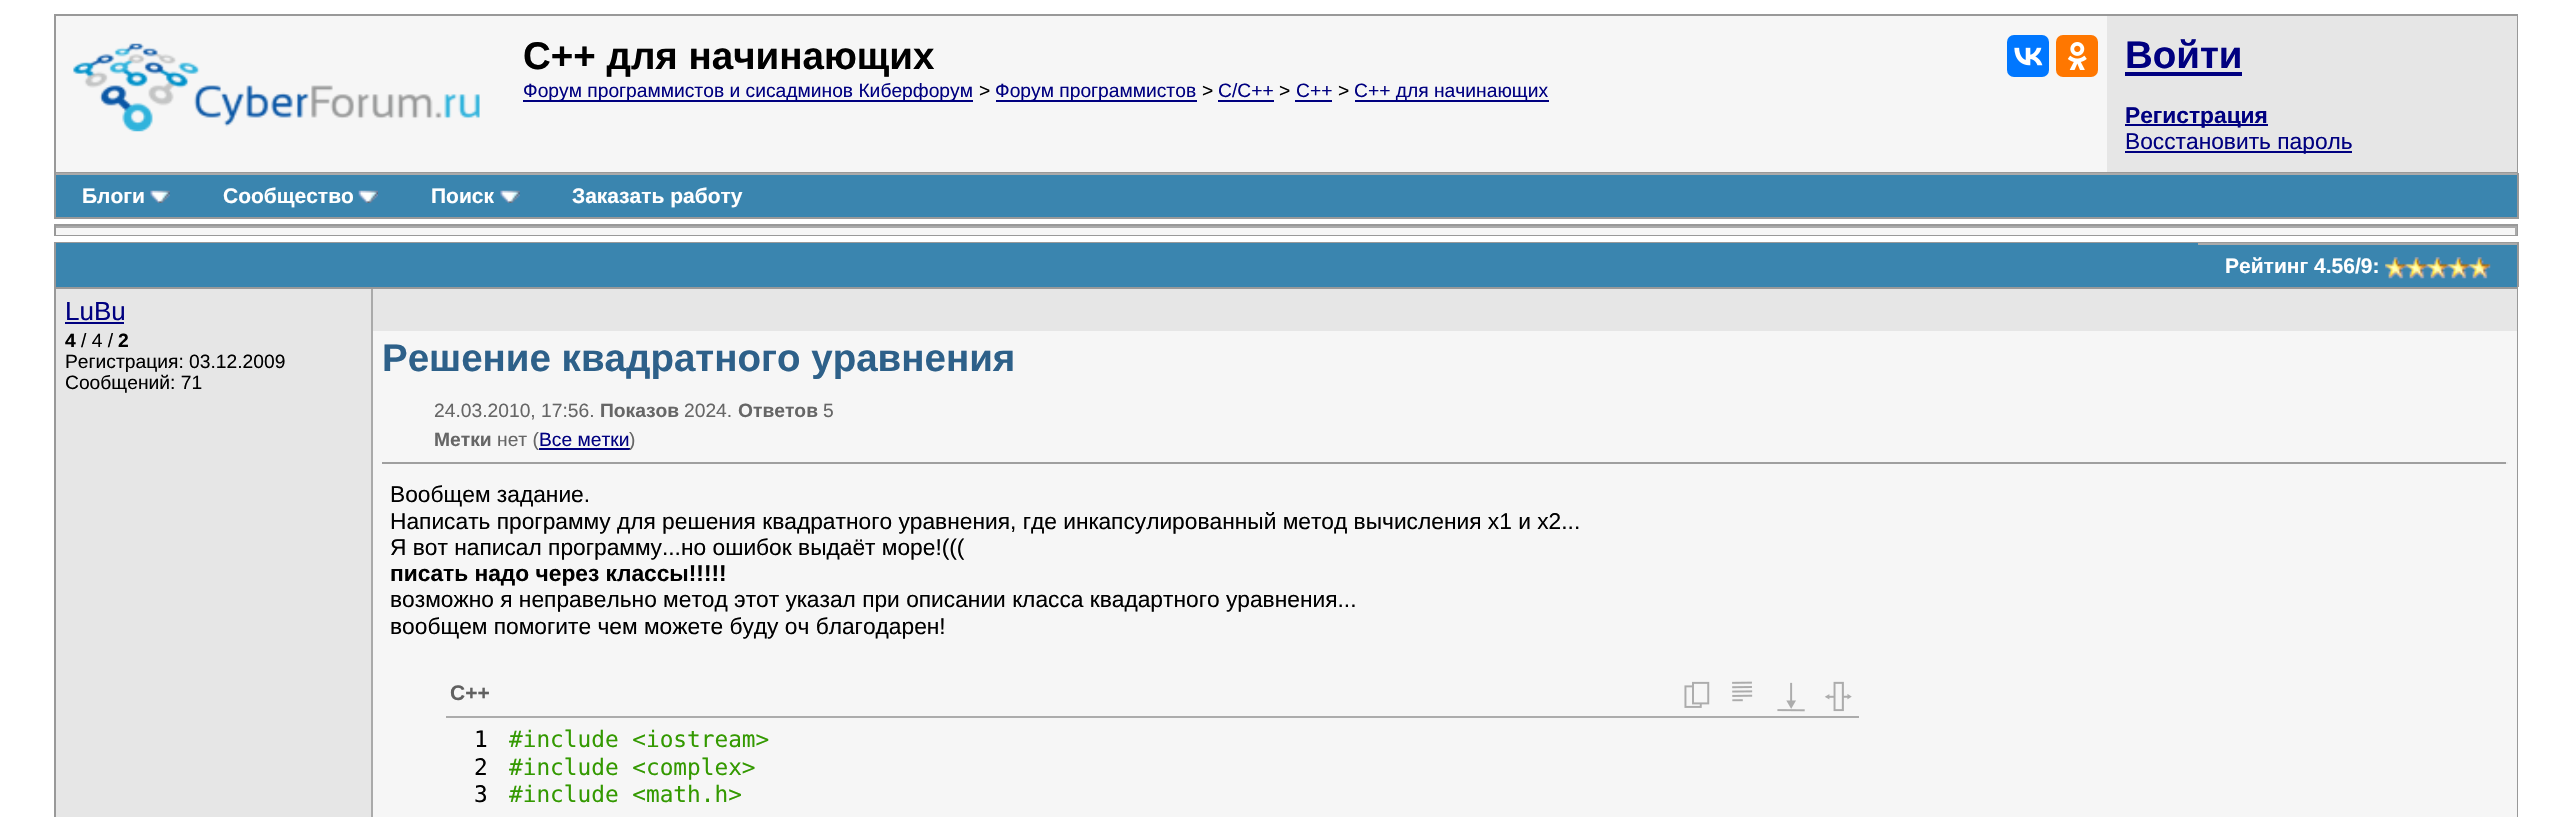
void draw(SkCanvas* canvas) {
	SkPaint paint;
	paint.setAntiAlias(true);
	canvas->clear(0xffffffff);
	paint.setStroke(true);
	paint.setStrokeWidth(2);
	paint.setColor(0xff999999);
	canvas->drawRect(SkRect::MakeXYWH(55, 15, 2462, 157), paint);
	paint.setStroke(false);
	paint.setColor(0xfff6f6f6);
	canvas->drawRect(SkRect::MakeXYWH(56, 16, 2051, 156), paint);
	canvas->drawImageRect(SkImages::DeferredFromEncodedData(SkData::MakeFromFileName("img1.png")), SkRect::MakeXYWH(73, 43, 407, 89), SkSamplingOptions());
	SkFont f1(fontMgr->matchFamilyStyle("Liberation Sans", SkFontStyle::Bold()), 38.5);
	f1.setSubpixel(true);
	paint.setColor(0xff000000);
	canvas->drawString("С++ для начинающих", 523, 69, f1, paint);
	paint.setColor(0xff0077ff);
	canvas->drawRoundRect(SkRect::MakeXYWH(2007, 35, 42, 42), 7, 7, paint);
	canvas->drawImageRect(SkImages::DeferredFromEncodedData(SkData::MakeFromFileName("img2.png")), SkRect::MakeXYWH(2014, 47, 29, 19), SkSamplingOptions());
	paint.setColor(0xffff7700);
	canvas->drawRoundRect(SkRect::MakeXYWH(2056, 35, 42, 42), 7, 7, paint);
	canvas->drawImageRect(SkImages::DeferredFromEncodedData(SkData::MakeFromFileName("img3.png")), SkRect::MakeXYWH(2067, 42, 20, 28), SkSamplingOptions());
	paint.setColor(0xff000080);
	canvas->drawRect(SkRect::MakeXYWH(523, 100, 450, 2), paint);
	SkFont f2(fontMgr->matchFamilyStyle("Liberation Sans", SkFontStyle::Normal()), 19.25);
	f2.setSubpixel(true);
	canvas->drawString("Форум программистов и сисадминов Киберфорум", 523, 97, f2, paint);
	paint.setColor(0xff000000);
	canvas->drawString(">", 979, 97, f2, paint);
	paint.setColor(0xff000080);
	canvas->drawRect(SkRect::MakeXYWH(996, 100, 201, 2), paint);
	canvas->drawString("Форум программистов", 995, 97, f2, paint);
	paint.setColor(0xff000000);
	canvas->drawString(">", 1202, 97, f2, paint);
	paint.setColor(0xff000080);
	canvas->drawString("C/C++", 1218, 97, f2, paint);
	canvas->drawRect(SkRect::MakeXYWH(1218, 100, 56, 2), paint);
	paint.setColor(0xff000000);
	canvas->drawString(">", 1279, 97, f2, paint);
	paint.setColor(0xff000080);
	canvas->drawString("C++", 1296, 97, f2, paint);
	canvas->drawRect(SkRect::MakeXYWH(1295, 100, 37, 2), paint);
	paint.setColor(0xff000000);
	canvas->drawString(">", 1338, 97, f2, paint);
	paint.setColor(0xff000080);
	canvas->drawRect(SkRect::MakeXYWH(1355, 100, 194, 2), paint);
	canvas->drawString("С++ для начинающих", 1354, 97, f2, paint);
	paint.setColor(0xffe6e6e6);
	canvas->drawRect(SkRect::MakeXYWH(2107, 16, 410, 156), paint);
	paint.setColor(0xff000080);
	canvas->drawString("Войти", 2125, 68, f1, paint);
	canvas->drawRect(SkRect::MakeXYWH(2125, 72, 117, 4), paint);
	canvas->drawRect(SkRect::MakeXYWH(2125, 124, 143, 2), paint);
	SkFont f3(fontMgr->matchFamilyStyle("Liberation Sans", SkFontStyle::Bold()), 22.75);
	f3.setSubpixel(true);
	canvas->drawString("Регистрация", 2125, 123, f3, paint);
	canvas->drawRect(SkRect::MakeXYWH(2125, 151, 227, 2), paint);
	SkFont f4(fontMgr->matchFamilyStyle("Liberation Sans", SkFontStyle::Normal()), 22.75);
	f4.setSubpixel(true);
	canvas->drawString("Восстановить пароль", 2125, 149, f4, paint);
	paint.setColor(0xff999999);
	canvas->drawRect(SkRect::MakeXYWH(2517, 173, 2, 46), paint);
	canvas->drawRect(SkRect::MakeXYWH(54, 217, 2464, 2), paint);
	canvas->drawRect(SkRect::MakeXYWH(54, 173, 2, 46), paint);
	paint.setColor(0xff3a85af);
	canvas->drawRect(SkRect::MakeXYWH(56, 175, 2461, 42), paint);
	paint.setColor(0xffaaaaaa);
	canvas->drawRect(SkRect::MakeXYWH(56, 173, 2461, 2), paint);
	SkFont f5(fontMgr->matchFamilyStyle("Liberation Sans", SkFontStyle::Bold()), 21);
	f5.setSubpixel(true);
	paint.setColor(0xffffffff);
	canvas->drawString("Блоги", 82, 203, f5, paint);
	canvas->drawImageRect(SkImages::DeferredFromEncodedData(SkData::MakeFromFileName("img4.png")), SkRect::MakeXYWH(150, 190, 20, 13), SkSamplingOptions());
	canvas->drawString("Сообщество", 223, 203, f5, paint);
	canvas->drawImageRect(SkImages::DeferredFromEncodedData(SkData::MakeFromFileName("img5.png")), SkRect::MakeXYWH(358, 190, 20, 13), SkSamplingOptions());
	canvas->drawString("Поиск", 431, 203, f5, paint);
	canvas->drawImageRect(SkImages::DeferredFromEncodedData(SkData::MakeFromFileName("img6.png")), SkRect::MakeXYWH(500, 190, 20, 13), SkSamplingOptions());
	canvas->drawString("Заказать работу", 572, 203, f5, paint);
	paint.setStroke(true);
	paint.setColor(0xff999999);
	canvas->drawRect(SkRect::MakeXYWH(55, 225, 2462, 10), paint);
	paint.setStroke(false);
	paint.setColor(0xfff6f6f6);
	canvas->drawRect(SkRect::MakeXYWH(56, 228, 2459, 7), paint);
	paint.setColor(0xffaaaaaa);
	canvas->drawRect(SkRect::MakeXYWH(56, 226, 2461, 2), paint);
	canvas->drawRect(SkRect::MakeXYWH(2515, 226, 2, 9), paint);
	paint.setColor(0xff999999);
	canvas->drawRect(SkRect::MakeXYWH(54, 242, 2464, 1), paint);
	canvas->drawRect(SkRect::MakeXYWH(2517, 242, 2, 45), paint);
	canvas->drawRect(SkRect::MakeXYWH(54, 242, 2, 45), paint);
	paint.setColor(0xff3a85af);
	canvas->drawRect(SkRect::MakeXYWH(56, 243, 2142, 44), paint);
	canvas->drawRect(SkRect::MakeXYWH(2198, 245, 319, 42), paint);
	paint.setColor(0xffaaaaaa);
	canvas->drawRect(SkRect::MakeXYWH(2198, 243, 319, 2), paint);
	paint.setColor(0xffffffff);
	canvas->drawString("Рейтинг 4.56/9:", 2225, 273, f5, paint);
	canvas->drawImageRect(SkImages::DeferredFromEncodedData(SkData::MakeFromFileName("img7.png")), SkRect::MakeXYWH(2385, 257, 106, 22), SkSamplingOptions());
	paint.setStroke(true);
	paint.setColor(0xff999999);
	canvas->drawRect(SkRect::MakeXYWH(55, 288, 2462, 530), paint);
	paint.setStroke(false);
	paint.setColor(0xffe6e6e6);
	canvas->drawRect(SkRect::MakeXYWH(56, 289, 315, 528), paint);
	paint.setColor(0xffaaaaaa);
	canvas->drawRect(SkRect::MakeXYWH(371, 289, 2, 528), paint);
	SkFont f6(fontMgr->matchFamilyStyle("Liberation Sans", SkFontStyle::Normal()), 26);
	f6.setSubpixel(true);
	paint.setColor(0xff000080);
	canvas->drawString("LuBu", 65, 320, f6, paint);
	canvas->drawRect(SkRect::MakeXYWH(65, 322, 59, 2), paint);
	SkFont f7(fontMgr->matchFamilyStyle("Liberation Sans", SkFontStyle::Bold()), 19.25);
	f7.setSubpixel(true);
	paint.setColor(0xff000000);
	canvas->drawString("4", 65, 347, f7, paint);
	canvas->drawString("/ 4 /", 81, 347, f2, paint);
	canvas->drawString("2", 118, 347, f7, paint);
	canvas->drawString("Регистрация: 03.12.2009", 65, 368, f2, paint);
	canvas->drawString("Сообщений: 71", 65, 389, f2, paint);
	paint.setColor(0xffe6e6e6);
	canvas->drawRect(SkRect::MakeXYWH(373, 289, 2144, 42), paint);
	paint.setColor(0xfff6f6f6);
	canvas->drawRect(SkRect::MakeXYWH(373, 331, 2144, 486), paint);
	paint.setColor(0xff2d6089);
	canvas->drawString("Решение квадратного уравнения", 382, 371, f1, paint);
	paint.setColor(0xff666666);
	canvas->drawString("24.03.2010, 17:56.", 434, 417, f2, paint);
	canvas->drawString("Показов", 600, 417, f7, paint);
	canvas->drawString("2024.", 684, 417, f2, paint);
	canvas->drawString("Ответов", 738, 417, f7, paint);
	canvas->drawString("5", 823, 417, f2, paint);
	canvas->drawString("Метки", 434, 446, f7, paint);
	canvas->drawString("нет (", 497, 446, f2, paint);
	paint.setColor(0xff000080);
	canvas->drawString("Все метки", 539, 446, f2, paint);
	canvas->drawRect(SkRect::MakeXYWH(539, 448, 91, 2), paint);
	paint.setColor(0xff666666);
	canvas->drawString(")", 629, 446, f2, paint);
	paint.setColor(0xff9f9f9f);
	canvas->drawRect(SkRect::MakeXYWH(382, 462, 2126, 2), paint);
	paint.setColor(0xffeeeeee);
	canvas->drawRect(SkRect::MakeXYWH(2506, 462, 2, 2), paint);
	paint.setColor(0xff000000);
	canvas->drawString("Вообщем задание.", 390, 502, f4, paint);
	canvas->drawString("Написать программу для решения квадратного уравнения, где инкапсулированный метод вычисления х1 и х2...", 390, 529, f4, paint);
	canvas->drawString("Я вот написал программу...но ошибок выдаёт море!(((", 390, 555, f4, paint);
	canvas->drawString("писать надо через классы!!!!!", 390, 581, f3, paint);
	canvas->drawString("возможно я неправельно метод этот указал при описании класса квадартного уравнения...", 390, 607, f4, paint);
	canvas->drawString("вообщем помогите чем можете буду оч благодарен!", 390, 634, f4, paint);
	paint.setColor(0xffacacac);
	canvas->drawRect(SkRect::MakeXYWH(446, 716, 1413, 2), paint);
	paint.setColor(0xff606060);
	canvas->drawString("C++", 450, 700, f5, paint);
	canvas->drawImageRect(SkImages::DeferredFromEncodedData(SkData::MakeFromFileName("img8.png")), SkRect::MakeXYWH(1684, 681, 168, 31), SkSamplingOptions());
	SkFont f8(fontMgr->matchFamilyStyle("DejaVu Sans Mono", SkFontStyle::Normal()), 22.75);
	f8.setSubpixel(true);
	paint.setColor(0xff000000);
	canvas->drawString("1", 474, 747, f8, paint);
	canvas->drawString("2", 474, 775, f8, paint);
	canvas->drawString("3", 474, 802, f8, paint);
	paint.setColor(0xff339900);
	canvas->drawString("#include <iostream>", 509, 747, f8, paint);
	canvas->drawString("#include <complex>", 509, 775, f8, paint);
	canvas->drawString("#include <math.h>", 509, 802, f8, paint);
}
